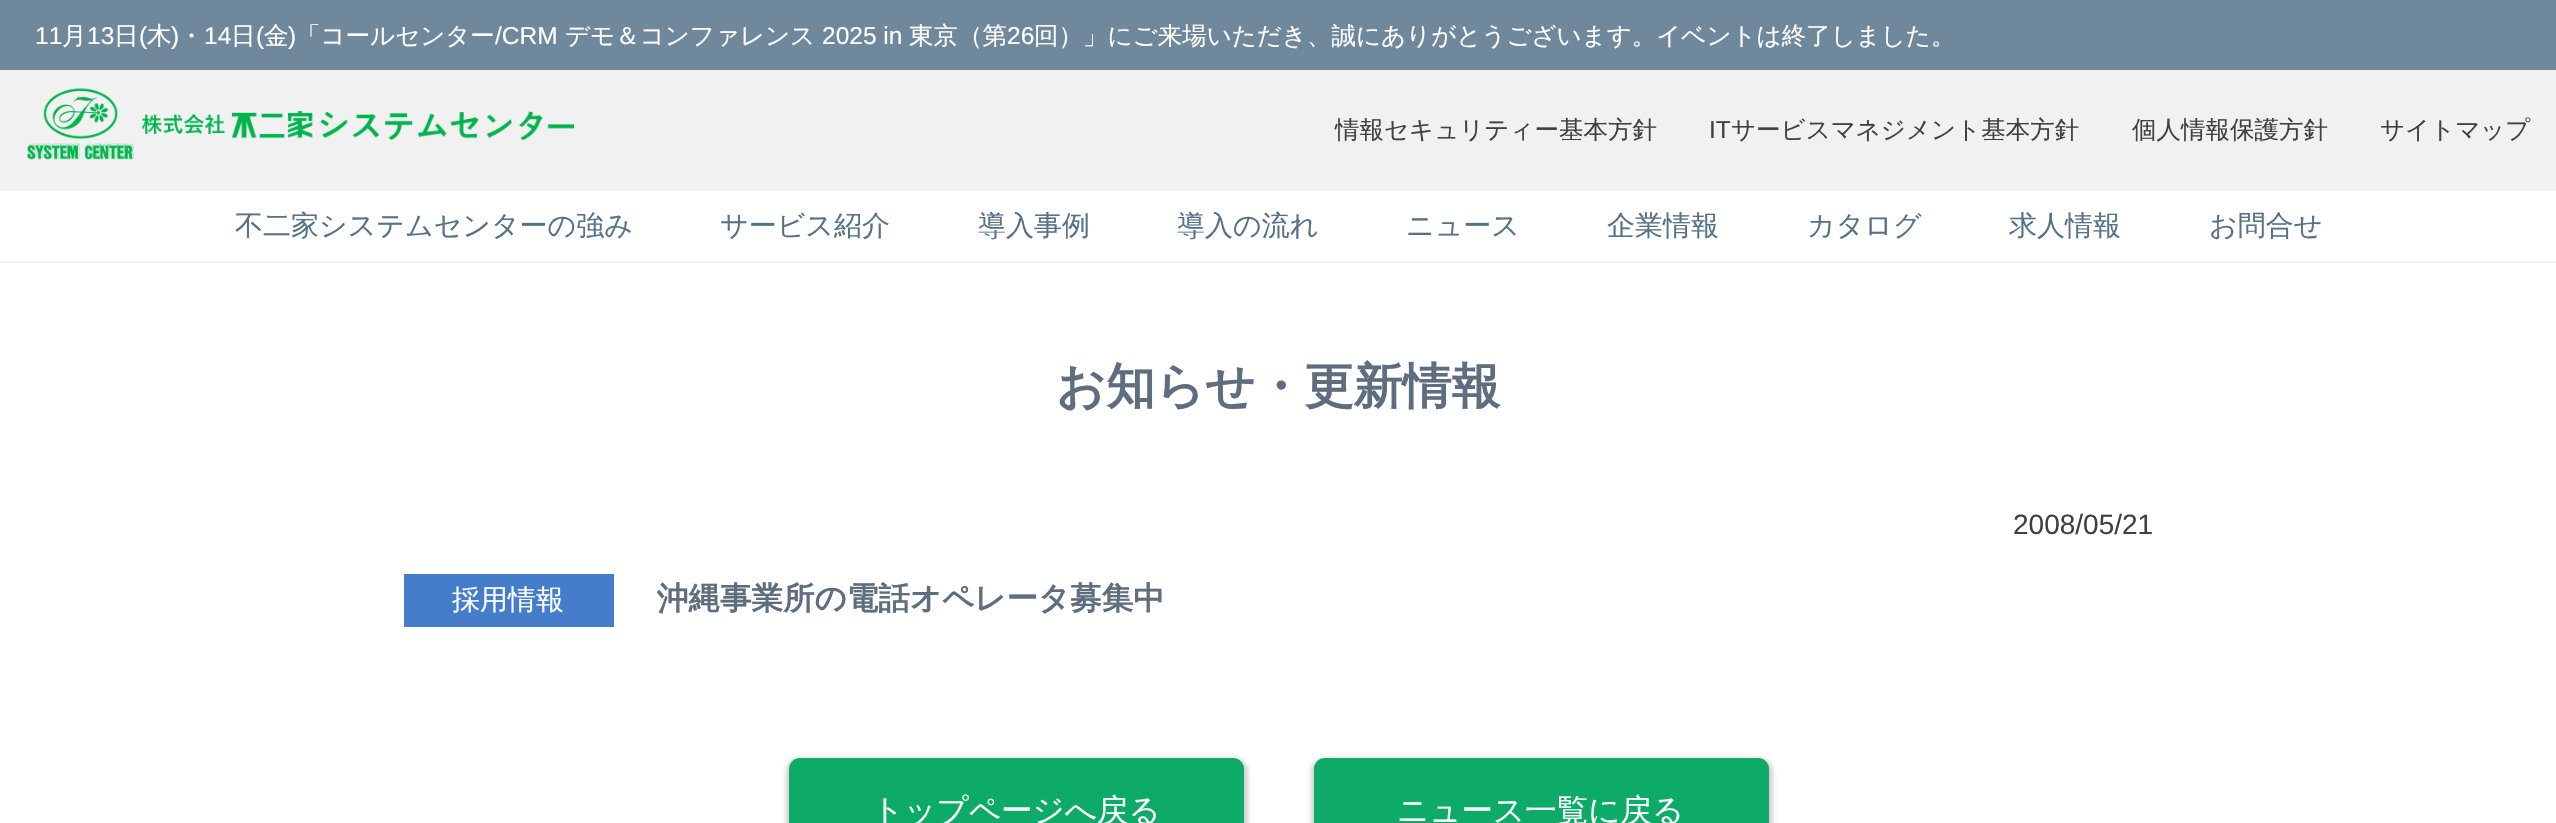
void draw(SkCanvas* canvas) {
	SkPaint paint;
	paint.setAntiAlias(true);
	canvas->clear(0xffffffff);
	paint.setColor(0xff6f889c);
	canvas->drawRect(SkRect::MakeXYWH(0, 0, 2556, 70), paint);
	SkFont f1(fontMgr->matchFamilyStyle("Liberation Sans", SkFontStyle::Normal()), 24.5);
	f1.setSubpixel(true);
	paint.setColor(0xffffffff);
	canvas->drawString("11", 35, 44, f1, paint);
	SkFont f2(fontMgr->matchFamilyStyle("WenQuanYi Zen Hei", SkFontStyle(500, SkFontStyle::kNormal_Width, SkFontStyle::kUpright_Slant)), 24.5);
	f2.setSubpixel(true);
	canvas->drawString("月", 62, 44, f2, paint);
	canvas->drawString("13", 87, 44, f1, paint);
	canvas->drawString("日", 114, 44, f2, paint);
	canvas->drawString("(", 139, 44, f1, paint);
	canvas->drawString("木", 147, 44, f2, paint);
	canvas->drawString(")", 171, 44, f1, paint);
	canvas->drawString("・", 179, 44, f2, paint);
	canvas->drawString("14", 204, 44, f1, paint);
	canvas->drawString("日", 231, 44, f2, paint);
	canvas->drawString("(", 256, 44, f1, paint);
	canvas->drawString("金", 264, 44, f2, paint);
	canvas->drawString(")", 288, 44, f1, paint);
	canvas->drawString("「コールセンター", 296, 44, f2, paint);
	canvas->drawString("/CRM", 495, 44, f1, paint);
	canvas->drawString("デモ＆コンファレンス", 565, 44, f2, paint);
	canvas->drawString("2025 in", 822, 44, f1, paint);
	canvas->drawString("東京（第", 909, 44, f2, paint);
	canvas->drawString("26", 1007, 44, f1, paint);
	canvas->drawString("回）」にご来場いただき、誠にありがとうございます。イベントは終了しました。", 1034, 44, f2, paint);
	paint.setColor(0xfff1f1f1);
	canvas->drawRect(SkRect::MakeXYWH(0, 70, 2556, 121), paint);
	canvas->drawImageRect(SkImages::DeferredFromEncodedData(SkData::MakeFromFileName("img1.png")), SkRect::MakeXYWH(27, 88, 547, 72), SkSamplingOptions());
	paint.setColor(0xff404040);
	canvas->drawString("情報セキュリティー基本方針", 1335, 138, f2, paint);
	canvas->drawString("IT", 1709, 138, f1, paint);
	canvas->drawString("サービスマネジメント基本方針", 1731, 138, f2, paint);
	canvas->drawString("個人情報保護方針", 2132, 138, f2, paint);
	canvas->drawString("サイトマップ", 2380, 138, f2, paint);
	paint.setColor(0xfff1f1f1);
	canvas->drawRect(SkRect::MakeXYWH(0, 261, 2556, 2), paint);
	SkFont f3(fontMgr->matchFamilyStyle("WenQuanYi Zen Hei", SkFontStyle(500, SkFontStyle::kNormal_Width, SkFontStyle::kUpright_Slant)), 28);
	f3.setSubpixel(true);
	paint.setColor(0xff567288);
	canvas->drawString("不二家システムセンターの強み", 235, 235, f3, paint);
	canvas->drawString("サービス紹介", 720, 235, f3, paint);
	canvas->drawString("導入事例", 978, 235, f3, paint);
	canvas->drawString("導入の流れ", 1177, 235, f3, paint);
	canvas->drawString("ニュース", 1406, 235, f3, paint);
	canvas->drawString("企業情報", 1607, 235, f3, paint);
	canvas->drawString("カタログ", 1807, 235, f3, paint);
	canvas->drawString("求人情報", 2009, 235, f3, paint);
	canvas->drawString("お問合せ", 2209, 235, f3, paint);
	SkFont f4(fontMgr->matchFamilyStyle("WenQuanYi Zen Hei", SkFontStyle::Bold()), 49);
	f4.setSubpixel(true);
	paint.setColor(0xff5e6e7e);
	canvas->drawString("お知らせ・更新情報", 1056, 403, f4, paint);
	SkFont f5(fontMgr->matchFamilyStyle("Liberation Sans", SkFontStyle::Normal()), 28);
	f5.setSubpixel(true);
	paint.setColor(0xff404040);
	canvas->drawString("2008/05/21", 2013, 534, f5, paint);
	paint.setColor(0xff457dca);
	canvas->drawRect(SkRect::MakeXYWH(404, 574, 210, 53), paint);
	paint.setColor(0xffffffff);
	canvas->drawString("採用情報", 452, 609, f3, paint);
	SkFont f6(fontMgr->matchFamilyStyle("WenQuanYi Zen Hei", SkFontStyle::Bold()), 31.5);
	f6.setSubpixel(true);
	paint.setColor(0xff5e6e7e);
	canvas->drawString("沖縄事業所の電話オペレータ募集中", 657, 609, f6, paint);
	paint.setColor(0x2e000000);
	paint.setMaskFilter(SkMaskFilter::MakeBlur(kNormal_SkBlurStyle, 2));
	canvas->drawRoundRect(SkRect::MakeXYWH(786, 758, 462, 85), 14, 14, paint);
	paint.setMaskFilter(nullptr);
	paint.setColor(0xff0dab67);
	canvas->drawRoundRect(SkRect::MakeXYWH(789, 758, 455, 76), 11, 11, paint);
	SkFont f7(fontMgr->matchFamilyStyle("WenQuanYi Zen Hei", SkFontStyle(500, SkFontStyle::kNormal_Width, SkFontStyle::kUpright_Slant)), 31.5);
	f7.setSubpixel(true);
	paint.setColor(0xffffffff);
	canvas->drawString("トップページへ戻る", 872, 821, f7, paint);
	paint.setColor(0x2e000000);
	paint.setMaskFilter(SkMaskFilter::MakeBlur(kNormal_SkBlurStyle, 2));
	canvas->drawRoundRect(SkRect::MakeXYWH(1311, 758, 462, 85), 14, 14, paint);
	paint.setMaskFilter(nullptr);
	paint.setColor(0xff0dab67);
	canvas->drawRoundRect(SkRect::MakeXYWH(1314, 758, 455, 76), 11, 11, paint);
	paint.setColor(0xffffffff);
	canvas->drawString("ニュース一覧に戻る", 1397, 821, f7, paint);
}
